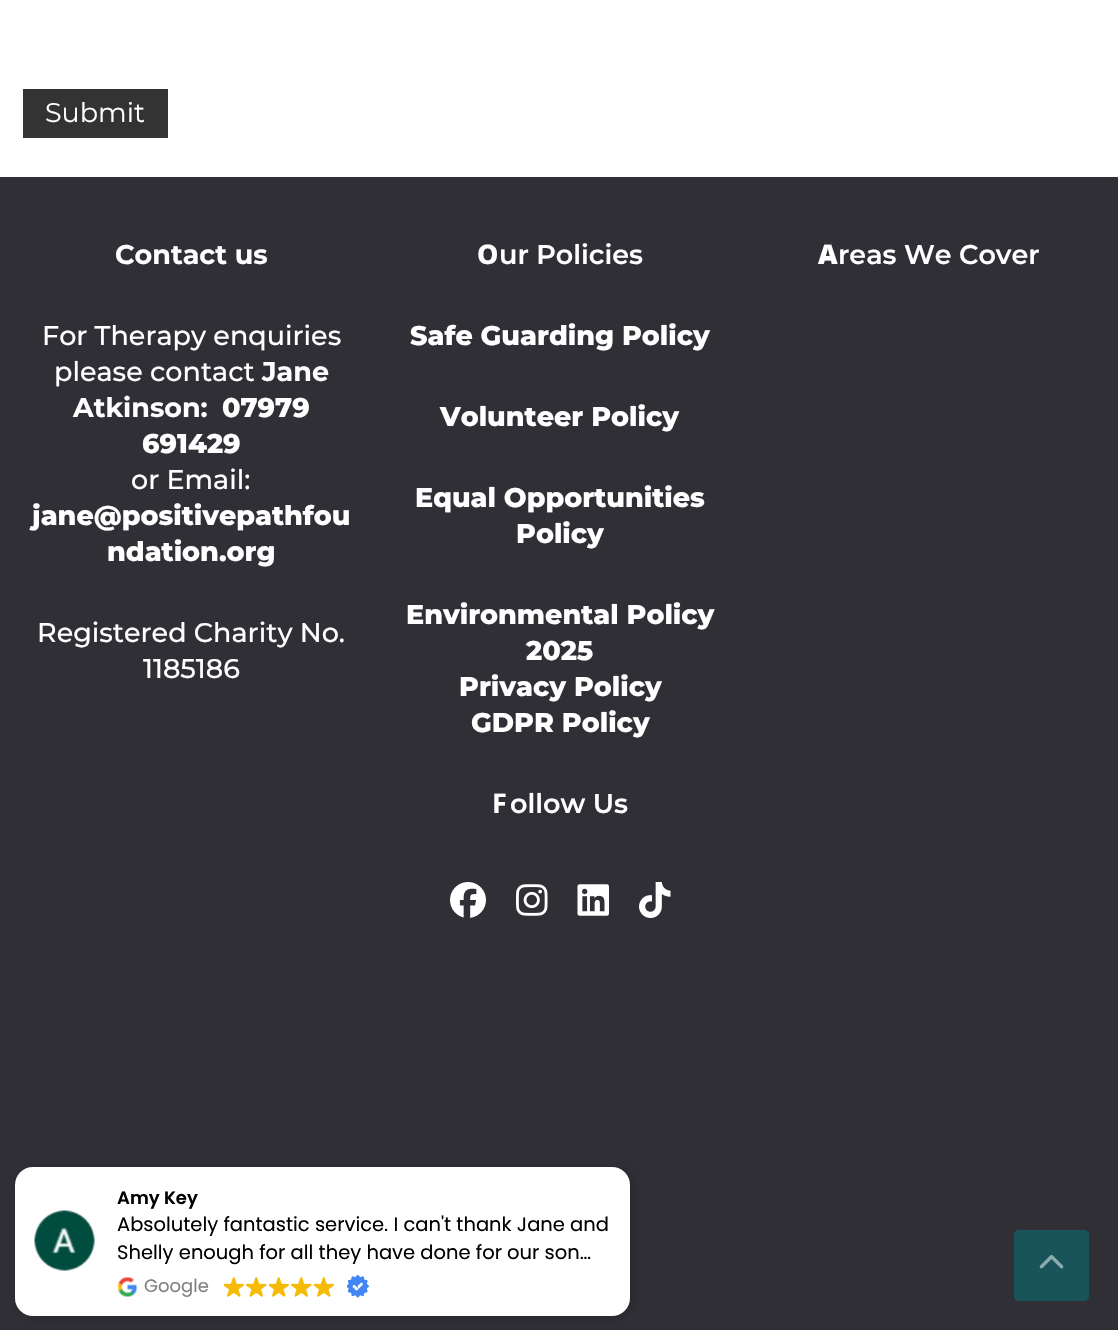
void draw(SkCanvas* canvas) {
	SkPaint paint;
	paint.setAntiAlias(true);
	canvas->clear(0xffffffff);
	paint.setColor(0xff333333);
	canvas->drawRect(SkRect::MakeXYWH(23, 89, 145, 49), paint);
	SkFont f1(fontMgr->matchFamilyStyle("Montserrat", SkFontStyle::Normal()), 27);
	f1.setSubpixel(true);
	paint.setColor(0xffffffff);
	canvas->drawString("Submit", 45, 122, f1, paint);
	paint.setColor(0xff312f36);
	canvas->drawRect(SkRect::MakeXYWH(0, 177, 1118, 1153), paint);
	SkFont f2(fontMgr->matchFamilyStyle("Montserrat", SkFontStyle::Bold()), 27);
	f2.setSubpixel(true);
	paint.setColor(0xffffffff);
	canvas->drawString("Contact us", 115, 264, f2, paint);
	SkFont f3(fontMgr->matchFamilyStyle("Montserrat", SkFontStyle(500, SkFontStyle::kNormal_Width, SkFontStyle::kUpright_Slant)), 27);
	f3.setSubpixel(true);
	canvas->drawString("For Therapy enquiries", 42, 345, f3, paint);
	canvas->drawString("please contact", 54, 381, f3, paint);
	canvas->drawString("Jane", 262, 381, f2, paint);
	canvas->drawString("Atkinson:", 73, 417, f2, paint);
	SkFont f4(fontMgr->matchFamilyStyle("Montserrat", SkFontStyle(800, SkFontStyle::kNormal_Width, SkFontStyle::kUpright_Slant)), 27);
	f4.setSubpixel(true);
	canvas->drawString("07979", 222, 417, f4, paint);
	canvas->drawString("691429", 142, 453, f4, paint);
	canvas->drawString("or Email:", 131, 489, f3, paint);
	canvas->drawString("jane@positivepathfou", 32, 525, f4, paint);
	canvas->drawString("ndation.org", 107, 561, f4, paint);
	canvas->drawString("Registered Charity No.", 37, 642, f3, paint);
	canvas->drawString("1185186", 143, 678, f3, paint);
	SkFont f5(fontMgr->matchFamilyStyle("Noto Sans", SkFontStyle(800, SkFontStyle::kNormal_Width, SkFontStyle::kUpright_Slant)), 27);
	f5.setSubpixel(true);
	canvas->drawString("O", 477, 264, f5, paint);
	SkFont f6(fontMgr->matchFamilyStyle("Montserrat", SkFontStyle(600, SkFontStyle::kNormal_Width, SkFontStyle::kUpright_Slant)), 27);
	f6.setSubpixel(true);
	canvas->drawString("ur Policies", 499, 264, f6, paint);
	canvas->drawString("Safe Guarding Policy", 410, 345, f4, paint);
	canvas->drawString("Volunteer Policy", 440, 426, f4, paint);
	canvas->drawString("Equal Opportunities", 415, 507, f4, paint);
	canvas->drawString("Policy", 516, 543, f4, paint);
	canvas->drawString("Environmental Policy", 406, 624, f4, paint);
	canvas->drawString("2025", 526, 660, f4, paint);
	canvas->drawString("Privacy Policy", 459, 696, f4, paint);
	canvas->drawString("GDPR Policy", 471, 732, f4, paint);
	SkFont f7(fontMgr->matchFamilyStyle("Noto Sans", SkFontStyle::Bold()), 27);
	f7.setSubpixel(true);
	canvas->drawString("F", 492, 813, f7, paint);
	canvas->drawString("ollow Us", 510, 813, f6, paint);
	canvas->drawImageRect(SkImages::DeferredFromEncodedData(SkData::MakeFromFileName("img1.png")), SkRect::MakeXYWH(450, 882, 36, 36), SkSamplingOptions());
	canvas->drawImageRect(SkImages::DeferredFromEncodedData(SkData::MakeFromFileName("img2.png")), SkRect::MakeXYWH(516, 884, 32, 32), SkSamplingOptions());
	canvas->drawImageRect(SkImages::DeferredFromEncodedData(SkData::MakeFromFileName("img3.png")), SkRect::MakeXYWH(577, 884, 32, 32), SkSamplingOptions());
	canvas->drawImageRect(SkImages::DeferredFromEncodedData(SkData::MakeFromFileName("img4.png")), SkRect::MakeXYWH(639, 882, 32, 36), SkSamplingOptions());
	SkFont f8(fontMgr->matchFamilyStyle("Noto Sans", SkFontStyle(900, SkFontStyle::kNormal_Width, SkFontStyle::kUpright_Slant)), 27);
	f8.setSubpixel(true);
	canvas->drawString("A", 818, 264, f8, paint);
	canvas->drawString("reas We Cover", 838, 264, f6, paint);
	paint.setColor(0xff19545b);
	canvas->drawRoundRect(SkRect::MakeXYWH(1014, 1230, 75, 71), 5, 5, paint);
	canvas->drawImageRect(SkImages::DeferredFromEncodedData(SkData::MakeFromFileName("img5.png")), SkRect::MakeXYWH(1039, 1255, 25, 14), SkSamplingOptions());
	paint.setColor(0x33000000);
	paint.setMaskFilter(SkMaskFilter::MakeBlur(kNormal_SkBlurStyle, 6));
	canvas->drawRoundRect(SkRect::MakeXYWH(17, 1169, 615, 148), 18, 18, paint);
	paint.setMaskFilter(nullptr);
	paint.setColor(0xffffffff);
	canvas->drawRoundRect(SkRect::MakeXYWH(15, 1167, 615, 149), 18, 18, paint);
	canvas->drawImageRect(SkImages::DeferredFromEncodedData(SkData::MakeFromFileName("img6.png")), SkRect::MakeXYWH(34, 1210, 61, 61), SkSamplingOptions());
	SkFont f9(fontMgr->matchFamilyStyle("Poppins", SkFontStyle(600, SkFontStyle::kNormal_Width, SkFontStyle::kUpright_Slant)), 18);
	f9.setSubpixel(true);
	paint.setColor(0xff000000);
	canvas->drawString("Amy Key", 117, 1204, f9, paint);
	SkFont f10(fontMgr->matchFamilyStyle("Poppins", SkFontStyle::Normal()), 19.5);
	f10.setSubpixel(true);
	canvas->drawString("Absolutely fantastic service. I can't thank Jane and", 117, 1231, f10, paint);
	canvas->drawString("Shelly enough for all they have done for our son…", 117, 1259, f10, paint);
	canvas->drawImageRect(SkImages::DeferredFromEncodedData(SkData::MakeFromFileName("img7.png")), SkRect::MakeXYWH(117, 1277, 21, 21), SkSamplingOptions());
	SkFont f11(fontMgr->matchFamilyStyle("Poppins", SkFontStyle::Normal()), 18);
	f11.setSubpixel(true);
	paint.setColor(0xff808080);
	canvas->drawString("Google", 144, 1292, f11, paint);
	canvas->drawImageRect(SkImages::DeferredFromEncodedData(SkData::MakeFromFileName("img8.png")), SkRect::MakeXYWH(224, 1277, 20, 20), SkSamplingOptions());
	canvas->drawImageRect(SkImages::DeferredFromEncodedData(SkData::MakeFromFileName("img9.png")), SkRect::MakeXYWH(246, 1277, 21, 20), SkSamplingOptions());
	canvas->drawImageRect(SkImages::DeferredFromEncodedData(SkData::MakeFromFileName("img8.png")), SkRect::MakeXYWH(269, 1277, 20, 20), SkSamplingOptions());
	canvas->drawImageRect(SkImages::DeferredFromEncodedData(SkData::MakeFromFileName("img9.png")), SkRect::MakeXYWH(291, 1277, 21, 20), SkSamplingOptions());
	canvas->drawImageRect(SkImages::DeferredFromEncodedData(SkData::MakeFromFileName("img8.png")), SkRect::MakeXYWH(314, 1277, 20, 20), SkSamplingOptions());
	canvas->drawImageRect(SkImages::DeferredFromEncodedData(SkData::MakeFromFileName("img10.png")), SkRect::MakeXYWH(347, 1275, 22, 23), SkSamplingOptions());
}
